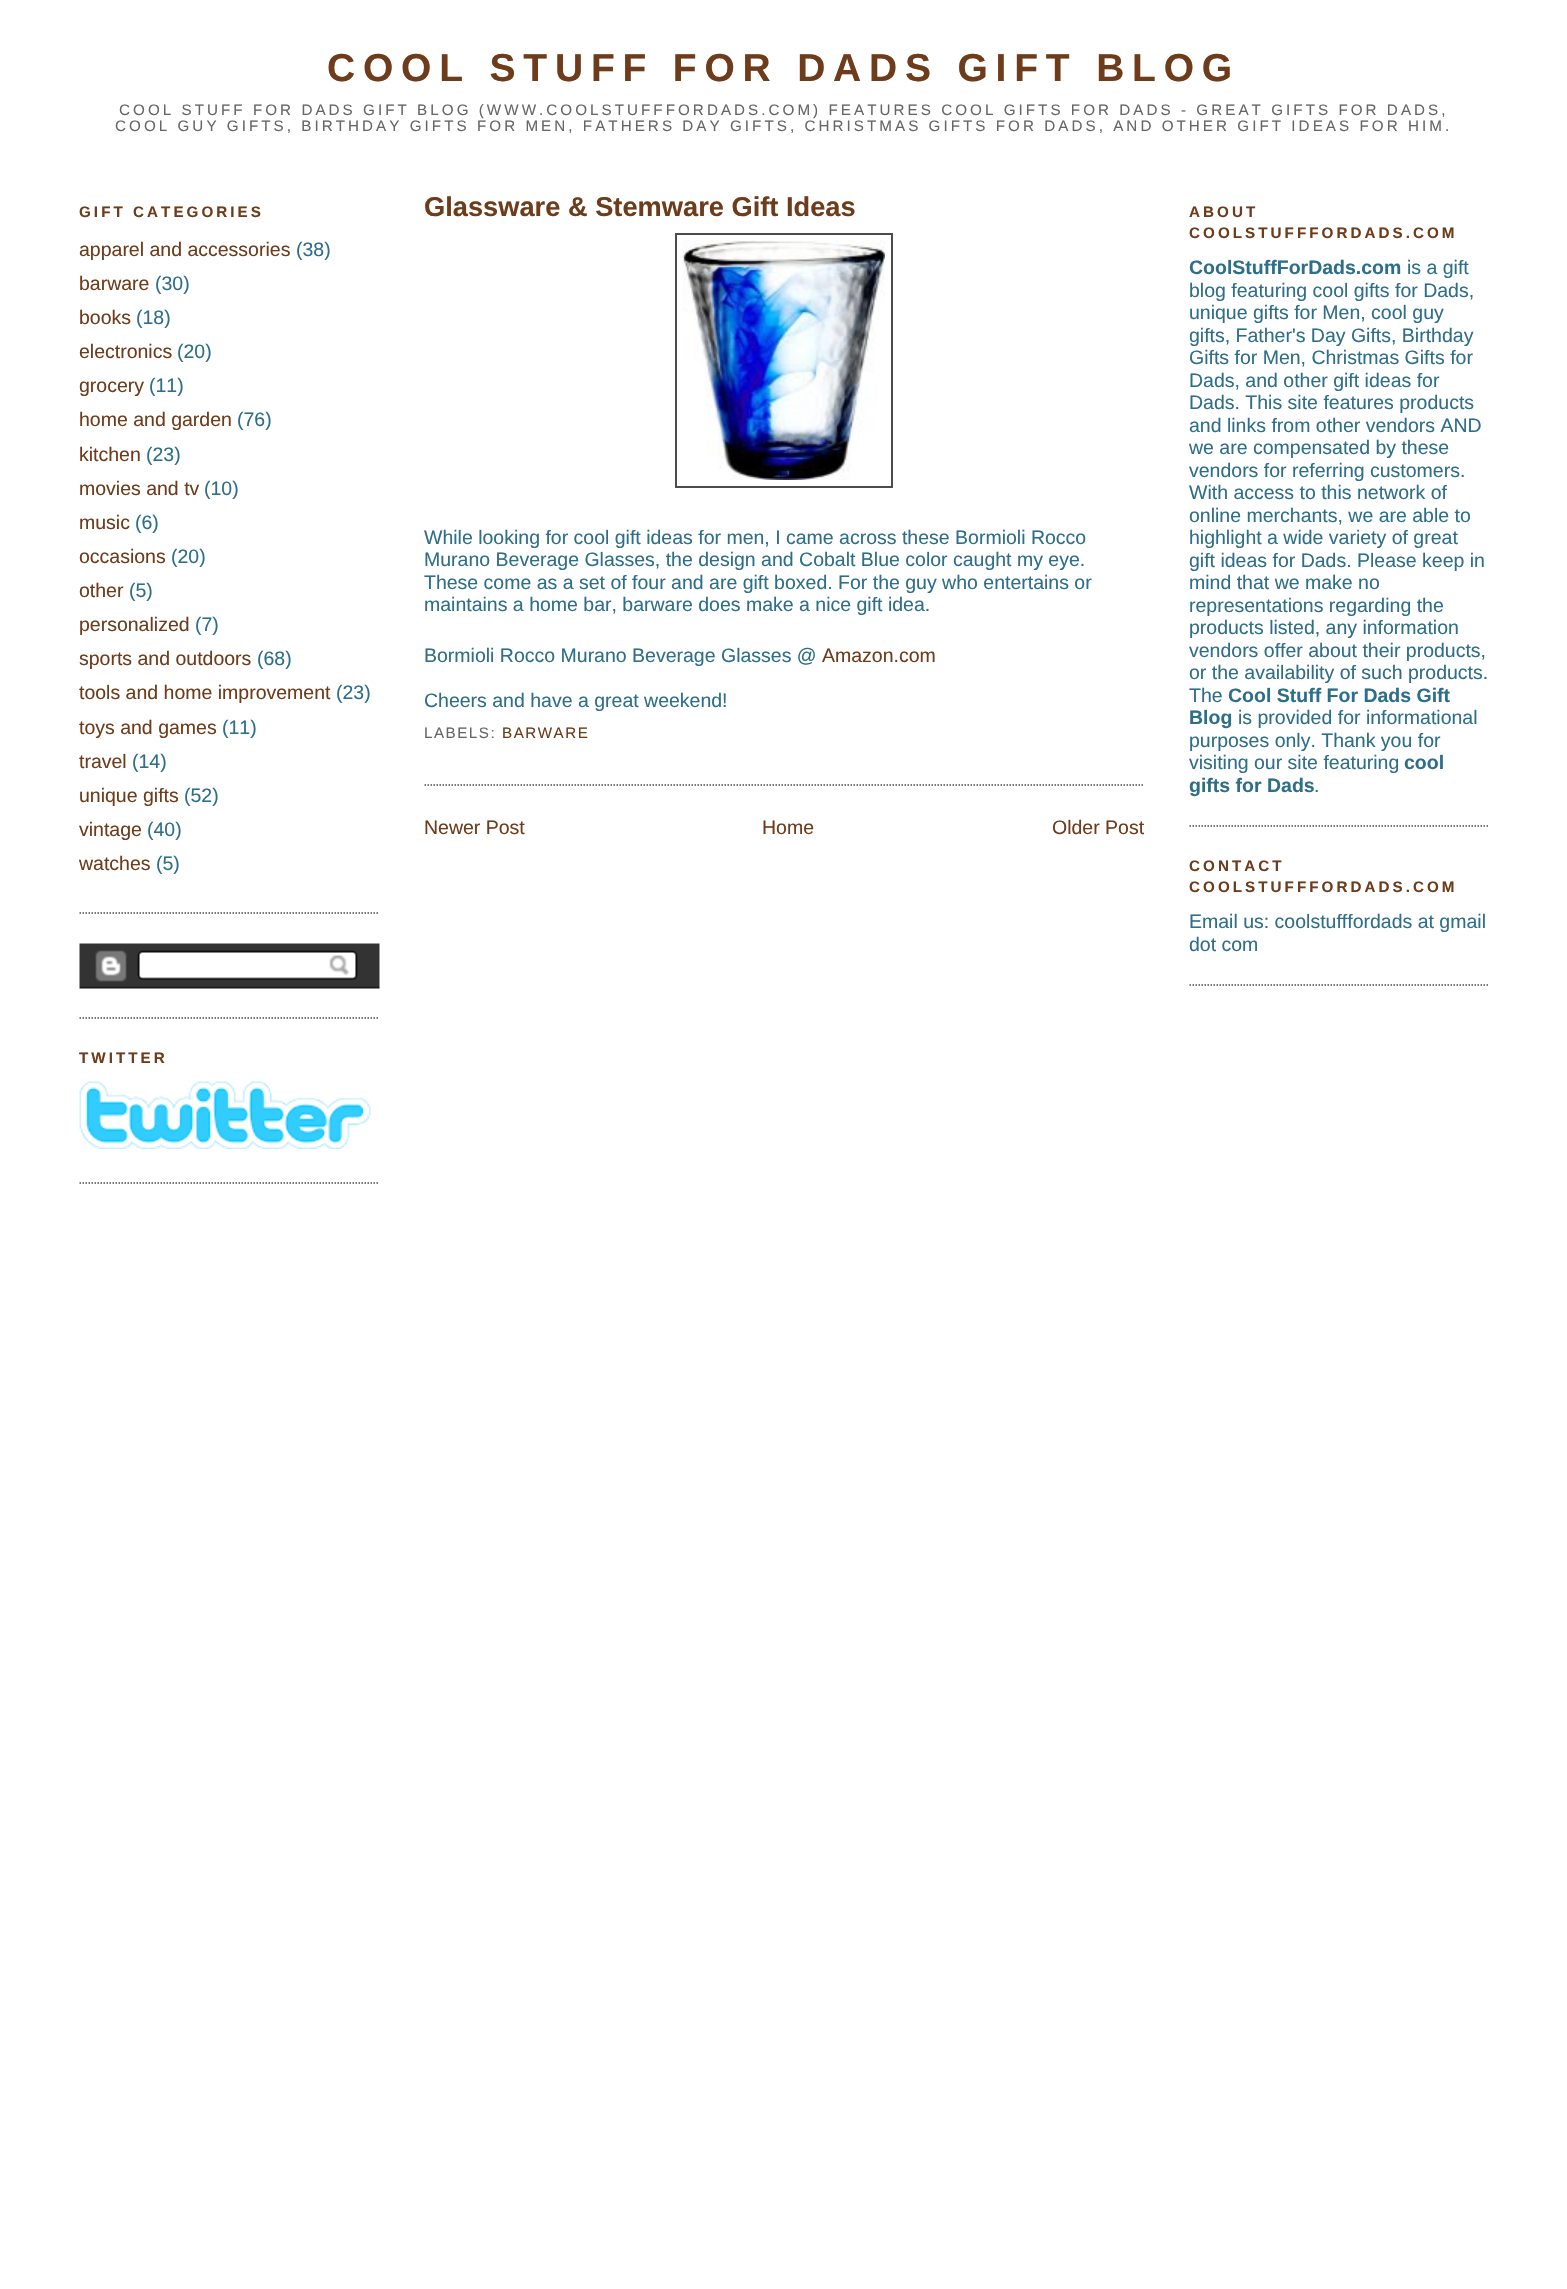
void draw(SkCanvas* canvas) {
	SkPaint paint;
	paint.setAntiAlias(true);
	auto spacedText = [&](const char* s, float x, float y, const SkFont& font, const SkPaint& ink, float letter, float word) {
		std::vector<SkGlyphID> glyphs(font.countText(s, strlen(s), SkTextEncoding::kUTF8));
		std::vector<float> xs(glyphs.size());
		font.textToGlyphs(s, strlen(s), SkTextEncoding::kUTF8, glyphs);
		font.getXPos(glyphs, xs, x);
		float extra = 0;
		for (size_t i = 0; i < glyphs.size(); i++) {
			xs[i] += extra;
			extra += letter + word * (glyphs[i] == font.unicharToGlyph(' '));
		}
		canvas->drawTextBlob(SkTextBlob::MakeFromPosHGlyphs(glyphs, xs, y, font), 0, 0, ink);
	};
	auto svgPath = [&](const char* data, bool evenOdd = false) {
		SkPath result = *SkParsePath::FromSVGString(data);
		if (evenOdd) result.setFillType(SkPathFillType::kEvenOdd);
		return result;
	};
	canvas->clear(0xffffffff);
	SkFont f1(fontMgr->matchFamilyStyle("Liberation Sans", SkFontStyle::Bold()), 39);
	f1.setSubpixel(true);
	paint.setColor(0xff6f3c1b);
	spacedText("COOL STUFF FOR DADS GIFT BLOG", 327, 81, f1, paint, 7.8, 0);
	SkFont f2(fontMgr->matchFamilyStyle("Liberation Sans", SkFontStyle::Normal()), 15.2);
	f2.setSubpixel(true);
	paint.setColor(0xff666666);
	spacedText("COOL STUFF FOR DADS GIFT BLOG (WWW.COOLSTUFFFORDADS.COM) FEATURES COOL GIFTS FOR DADS - GREAT GIFTS FOR DADS,", 119, 115, f2, paint, 3.04, 0);
	spacedText("COOL GUY GIFTS, BIRTHDAY GIFTS FOR MEN, FATHERS DAY GIFTS, CHRISTMAS GIFTS FOR DADS, AND OTHER GIFT IDEAS FOR HIM.", 115, 131, f2, paint, 3.04, 0);
	paint.setStroke(true);
	paint.setStrokeWidth(1.5);
	paint.setColor(0xff4c4c4c);
	paint.setPathEffect(SkDashPathEffect::Make({{1.5f, 1.5f}}, 0));
	canvas->drawPath(svgPath("M79.5 913H379.5"), paint);
	paint.setPathEffect(nullptr);
	SkFont f3(fontMgr->matchFamilyStyle("Liberation Sans", SkFontStyle::Bold()), 15.2);
	f3.setSubpixel(true);
	paint.setStroke(false);
	paint.setColor(0xff6f3c1b);
	spacedText("GIFT CATEGORIES", 79, 217, f3, paint, 3.04, 0);
	SkFont f4(fontMgr->matchFamilyStyle("Liberation Sans", SkFontStyle::Normal()), 19.5);
	f4.setSubpixel(true);
	canvas->drawString("apparel and accessories", 79, 256, f4, paint);
	paint.setColor(0xff2d6e89);
	canvas->drawString("(38)", 296, 256, f4, paint);
	paint.setColor(0xff6f3c1b);
	canvas->drawString("barware", 79, 290, f4, paint);
	paint.setColor(0xff2d6e89);
	canvas->drawString("(30)", 155, 290, f4, paint);
	paint.setColor(0xff6f3c1b);
	canvas->drawString("books", 79, 324, f4, paint);
	paint.setColor(0xff2d6e89);
	canvas->drawString("(18)", 136, 324, f4, paint);
	paint.setColor(0xff6f3c1b);
	canvas->drawString("electronics", 79, 358, f4, paint);
	paint.setColor(0xff2d6e89);
	canvas->drawString("(20)", 177, 358, f4, paint);
	paint.setColor(0xff6f3c1b);
	canvas->drawString("grocery", 79, 392, f4, paint);
	paint.setColor(0xff2d6e89);
	canvas->drawString("(11)", 149, 392, f4, paint);
	paint.setColor(0xff6f3c1b);
	canvas->drawString("home and garden", 79, 426, f4, paint);
	paint.setColor(0xff2d6e89);
	canvas->drawString("(76)", 237, 426, f4, paint);
	paint.setColor(0xff6f3c1b);
	canvas->drawString("kitchen", 79, 461, f4, paint);
	paint.setColor(0xff2d6e89);
	canvas->drawString("(23)", 146, 461, f4, paint);
	paint.setColor(0xff6f3c1b);
	canvas->drawString("movies and tv", 79, 495, f4, paint);
	paint.setColor(0xff2d6e89);
	canvas->drawString("(10)", 204, 495, f4, paint);
	paint.setColor(0xff6f3c1b);
	canvas->drawString("music", 79, 529, f4, paint);
	paint.setColor(0xff2d6e89);
	canvas->drawString("(6)", 135, 529, f4, paint);
	paint.setColor(0xff6f3c1b);
	canvas->drawString("occasions", 79, 563, f4, paint);
	paint.setColor(0xff2d6e89);
	canvas->drawString("(20)", 171, 563, f4, paint);
	paint.setColor(0xff6f3c1b);
	canvas->drawString("other", 79, 597, f4, paint);
	paint.setColor(0xff2d6e89);
	canvas->drawString("(5)", 129, 597, f4, paint);
	paint.setColor(0xff6f3c1b);
	canvas->drawString("personalized", 79, 631, f4, paint);
	paint.setColor(0xff2d6e89);
	canvas->drawString("(7)", 195, 631, f4, paint);
	paint.setColor(0xff6f3c1b);
	canvas->drawString("sports and outdoors", 79, 665, f4, paint);
	paint.setColor(0xff2d6e89);
	canvas->drawString("(68)", 257, 665, f4, paint);
	paint.setColor(0xff6f3c1b);
	canvas->drawString("tools and home improvement", 79, 699, f4, paint);
	paint.setColor(0xff2d6e89);
	canvas->drawString("(23)", 336, 699, f4, paint);
	paint.setColor(0xff6f3c1b);
	canvas->drawString("toys and games", 79, 734, f4, paint);
	paint.setColor(0xff2d6e89);
	canvas->drawString("(11)", 222, 734, f4, paint);
	paint.setColor(0xff6f3c1b);
	canvas->drawString("travel", 79, 768, f4, paint);
	paint.setColor(0xff2d6e89);
	canvas->drawString("(14)", 132, 768, f4, paint);
	paint.setColor(0xff6f3c1b);
	canvas->drawString("unique gifts", 79, 802, f4, paint);
	paint.setColor(0xff2d6e89);
	canvas->drawString("(52)", 184, 802, f4, paint);
	paint.setColor(0xff6f3c1b);
	canvas->drawString("vintage", 79, 836, f4, paint);
	paint.setColor(0xff2d6e89);
	canvas->drawString("(40)", 147, 836, f4, paint);
	paint.setColor(0xff6f3c1b);
	canvas->drawString("watches", 79, 870, f4, paint);
	paint.setColor(0xff2d6e89);
	canvas->drawString("(5)", 156, 870, f4, paint);
	paint.setStroke(true);
	paint.setColor(0xff4c4c4c);
	paint.setPathEffect(SkDashPathEffect::Make({{1.5f, 1.5f}}, 0));
	canvas->drawPath(svgPath("M79.5 1018H379.5"), paint);
	paint.setPathEffect(nullptr);
	canvas->drawImageRect(SkImages::DeferredFromEncodedData(SkData::MakeFromFileName("img1.png")), SkRect::MakeXYWH(79, 943, 301, 46), SkSamplingOptions());
	paint.setPathEffect(SkDashPathEffect::Make({{1.5f, 1.5f}}, 0));
	canvas->drawPath(svgPath("M79.5 1183H379.5"), paint);
	paint.setPathEffect(nullptr);
	paint.setStroke(false);
	paint.setColor(0xff6f3c1b);
	spacedText("TWITTER", 79, 1063, f3, paint, 3.04, 0);
	canvas->drawImageRect(SkImages::DeferredFromEncodedData(SkData::MakeFromFileName("img2.png")), SkRect::MakeXYWH(79, 1081, 292, 68), SkSamplingOptions());
	paint.setStroke(true);
	paint.setColor(0xff4c4c4c);
	paint.setPathEffect(SkDashPathEffect::Make({{1.5f, 1.5f}}, 0));
	canvas->drawPath(svgPath("M424.5 785H1144.5"), paint);
	paint.setPathEffect(nullptr);
	SkFont f5(fontMgr->matchFamilyStyle("Liberation Sans", SkFontStyle::Bold()), 27.25);
	f5.setSubpixel(true);
	paint.setStroke(false);
	paint.setColor(0xff6f3c1b);
	canvas->drawString("Glassware & Stemware Gift Ideas", 424, 216, f5, paint);
	paint.setStroke(true);
	paint.setStrokeWidth(2);
	paint.setColor(0xff4c4c4c);
	canvas->drawRect(SkRect::MakeXYWH(676, 234, 216, 253), paint);
	canvas->drawImageRect(SkImages::DeferredFromEncodedData(SkData::MakeFromFileName("img3.png")), SkRect::MakeXYWH(682, 240, 203, 240), SkSamplingOptions());
	paint.setStroke(false);
	paint.setColor(0xff2d6e89);
	canvas->drawString("While looking for cool gift ideas for men, I came across these Bormioli Rocco", 424, 544, f4, paint);
	canvas->drawString("Murano Beverage Glasses, the design and Cobalt Blue color caught my eye.", 424, 566, f4, paint);
	canvas->drawString("These come as a set of four and are gift boxed. For the guy who entertains or", 424, 589, f4, paint);
	canvas->drawString("maintains a home bar, barware does make a nice gift idea.", 424, 611, f4, paint);
	canvas->drawString("Bormioli Rocco Murano Beverage Glasses @", 424, 662, f4, paint);
	paint.setColor(0xff6f3c1b);
	canvas->drawString("Amazon.com", 822, 662, f4, paint);
	paint.setColor(0xff2d6e89);
	canvas->drawString("Cheers and have a great weekend!", 424, 707, f4, paint);
	paint.setColor(0xff666666);
	spacedText("LABELS:", 424, 738, f2, paint, 1.5, 0);
	paint.setColor(0xff6f3c1b);
	spacedText("BARWARE", 502, 738, f2, paint, 1.5, 0);
	canvas->drawString("Newer Post", 424, 834, f4, paint);
	canvas->drawString("Home", 762, 834, f4, paint);
	canvas->drawString("Older Post", 1052, 834, f4, paint);
	paint.setStroke(true);
	paint.setStrokeWidth(1.5);
	paint.setColor(0xff4c4c4c);
	paint.setPathEffect(SkDashPathEffect::Make({{1.5f, 1.5f}}, 0));
	canvas->drawPath(svgPath("M1189.5 826H1489.5"), paint);
	paint.setPathEffect(nullptr);
	paint.setStroke(false);
	paint.setColor(0xff6f3c1b);
	spacedText("ABOUT", 1189, 217, f3, paint, 3.04, 0);
	spacedText("COOLSTUFFFORDADS.COM", 1189, 238, f3, paint, 3.04, 0);
	SkFont f6(fontMgr->matchFamilyStyle("Liberation Sans", SkFontStyle::Bold()), 19.5);
	f6.setSubpixel(true);
	paint.setColor(0xff2d6e89);
	canvas->drawString("CoolStuffForDads.com", 1189, 274, f6, paint);
	canvas->drawString("is a gift", 1407, 274, f4, paint);
	canvas->drawString("blog featuring cool gifts for Dads,", 1189, 297, f4, paint);
	canvas->drawString("unique gifts for Men, cool guy", 1189, 319, f4, paint);
	canvas->drawString("gifts, Father's Day Gifts, Birthday", 1189, 342, f4, paint);
	canvas->drawString("Gifts for Men, Christmas Gifts for", 1189, 364, f4, paint);
	canvas->drawString("Dads, and other gift ideas for", 1189, 387, f4, paint);
	canvas->drawString("Dads. This site features products", 1189, 409, f4, paint);
	canvas->drawString("and links from other vendors AND", 1189, 432, f4, paint);
	canvas->drawString("we are compensated by these", 1189, 454, f4, paint);
	canvas->drawString("vendors for referring customers.", 1189, 477, f4, paint);
	canvas->drawString("With access to this network of", 1189, 499, f4, paint);
	canvas->drawString("online merchants, we are able to", 1189, 522, f4, paint);
	canvas->drawString("highlight a wide variety of great", 1189, 544, f4, paint);
	canvas->drawString("gift ideas for Dads. Please keep in", 1189, 567, f4, paint);
	canvas->drawString("mind that we make no", 1189, 589, f4, paint);
	canvas->drawString("representations regarding the", 1189, 612, f4, paint);
	canvas->drawString("products listed, any information", 1189, 634, f4, paint);
	canvas->drawString("vendors offer about their products,", 1189, 657, f4, paint);
	canvas->drawString("or the availability of such products.", 1189, 679, f4, paint);
	canvas->drawString("The", 1189, 702, f4, paint);
	canvas->drawString("Cool Stuff For Dads Gift", 1228, 702, f6, paint);
	canvas->drawString("Blog", 1189, 724, f6, paint);
	canvas->drawString("is provided for informational", 1238, 724, f4, paint);
	canvas->drawString("purposes only. Thank you for", 1189, 747, f4, paint);
	canvas->drawString("visiting our site featuring", 1189, 769, f4, paint);
	canvas->drawString("cool", 1404, 769, f6, paint);
	canvas->drawString("gifts for Dads", 1189, 792, f6, paint);
	canvas->drawString(".", 1314, 792, f4, paint);
	paint.setStroke(true);
	paint.setColor(0xff4c4c4c);
	paint.setPathEffect(SkDashPathEffect::Make({{1.5f, 1.5f}}, 0));
	canvas->drawPath(svgPath("M1189.5 985H1489.5"), paint);
	paint.setPathEffect(nullptr);
	paint.setStroke(false);
	paint.setColor(0xff6f3c1b);
	spacedText("CONTACT", 1189, 871, f3, paint, 3.04, 0);
	spacedText("COOLSTUFFFORDADS.COM", 1189, 892, f3, paint, 3.04, 0);
	paint.setColor(0xff2d6e89);
	canvas->drawString("Email us: coolstufffordads at gmail", 1189, 928, f4, paint);
	canvas->drawString("dot com", 1189, 951, f4, paint);
}
